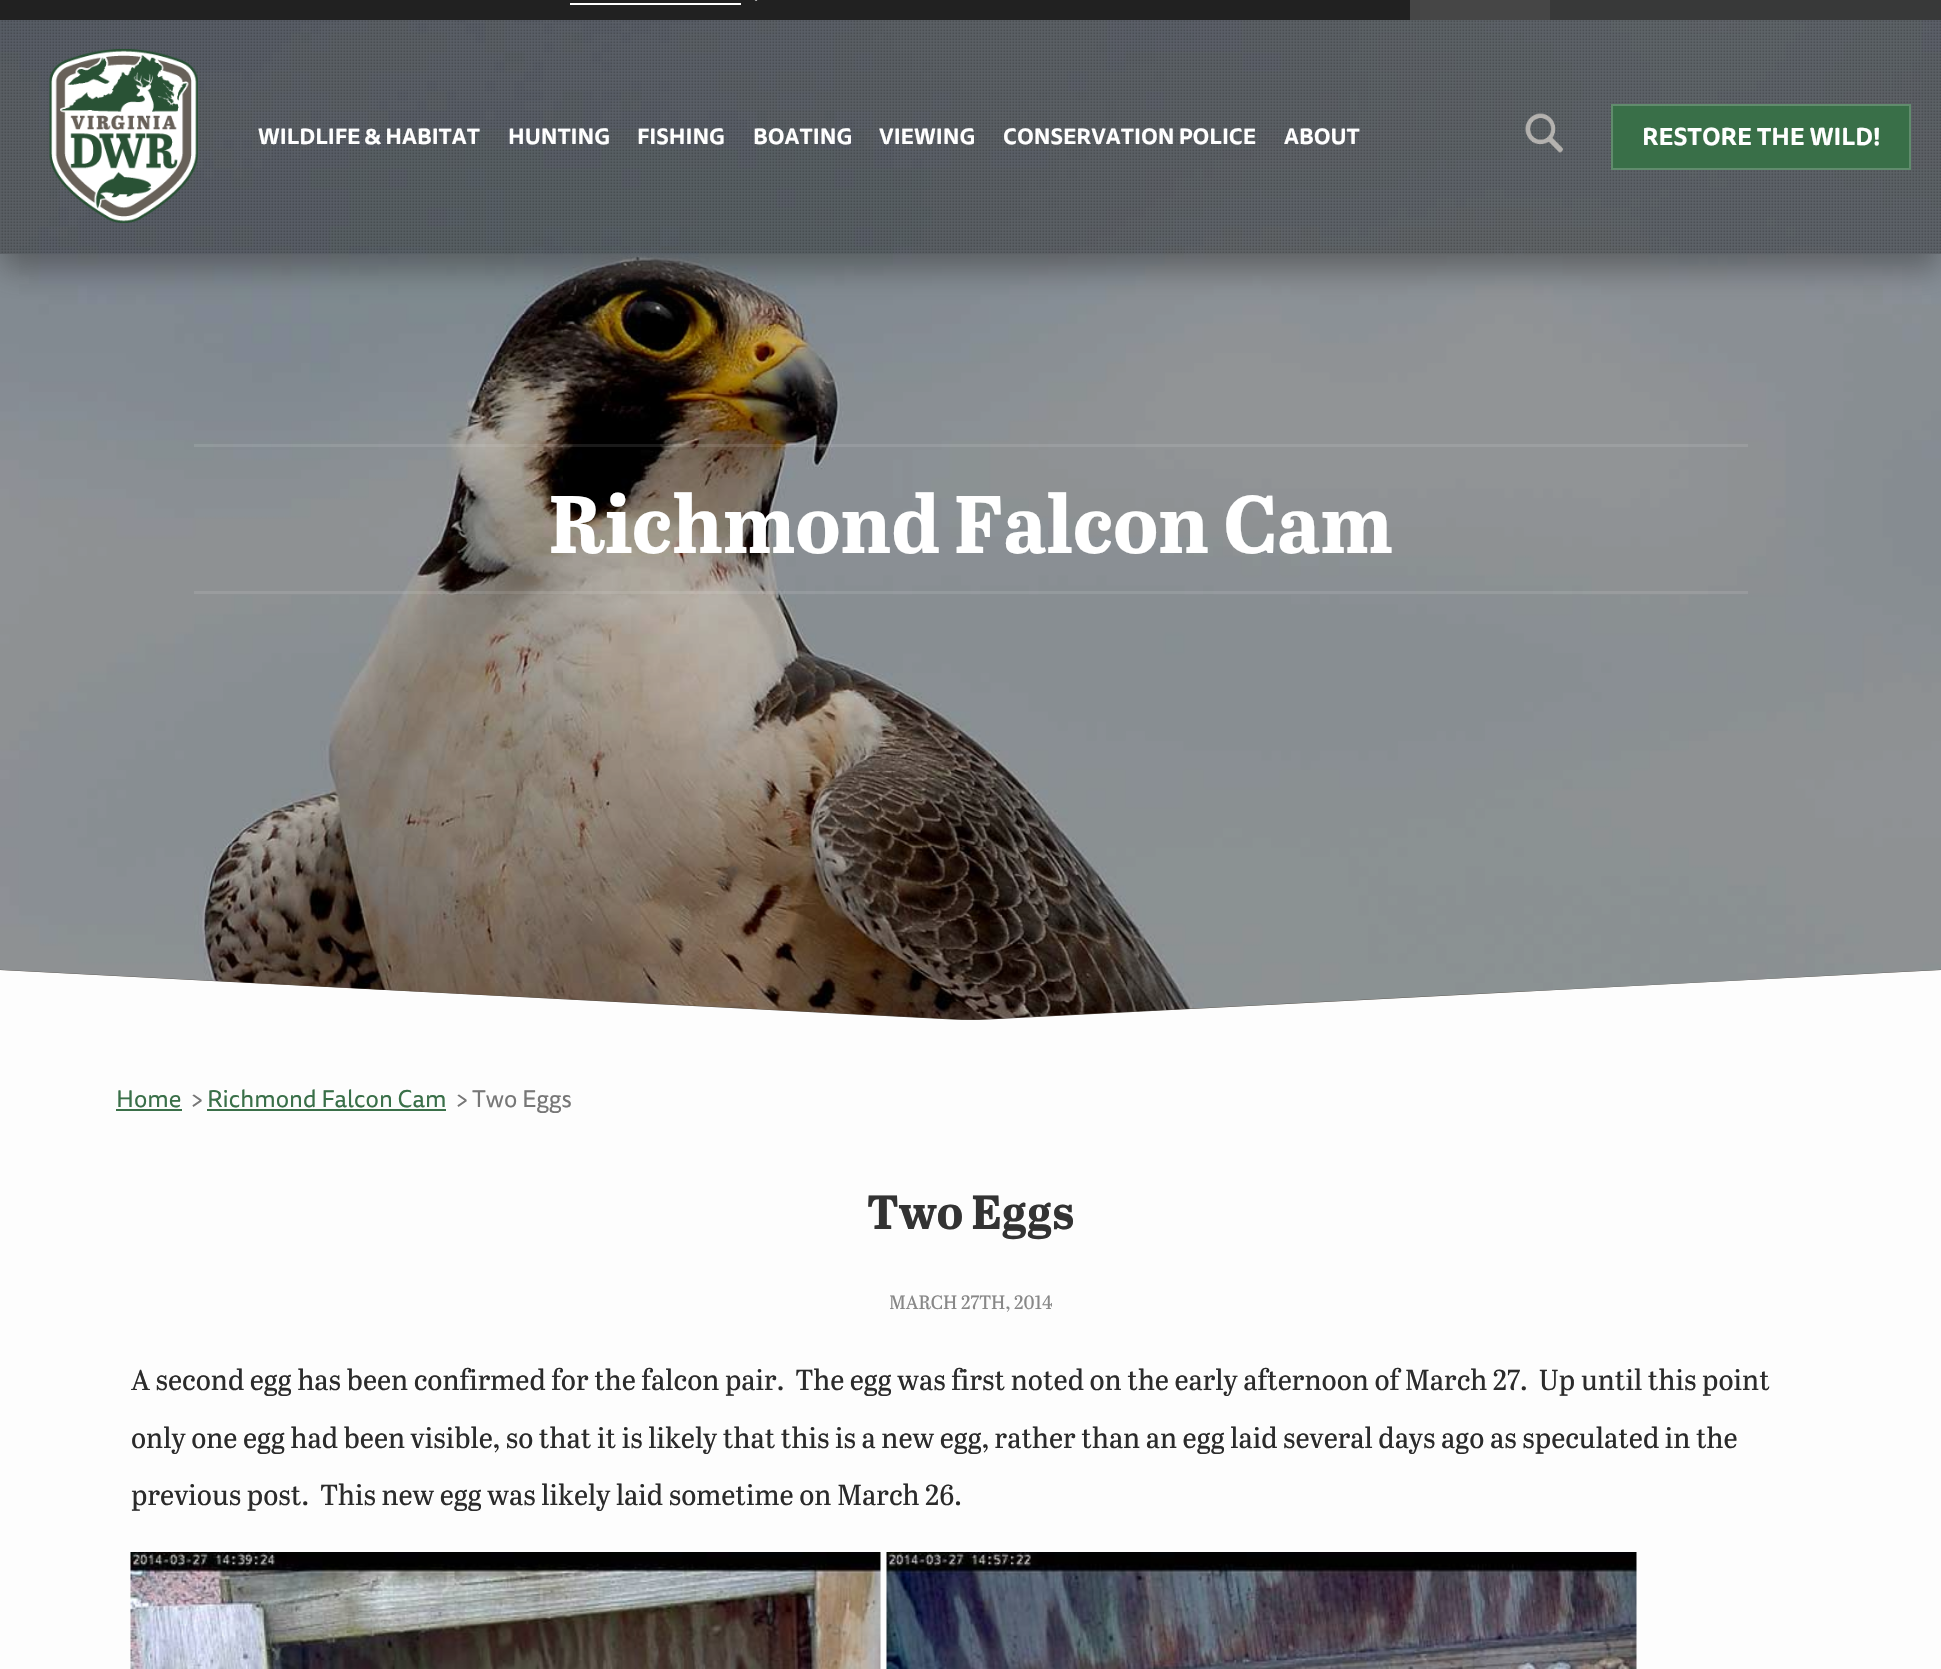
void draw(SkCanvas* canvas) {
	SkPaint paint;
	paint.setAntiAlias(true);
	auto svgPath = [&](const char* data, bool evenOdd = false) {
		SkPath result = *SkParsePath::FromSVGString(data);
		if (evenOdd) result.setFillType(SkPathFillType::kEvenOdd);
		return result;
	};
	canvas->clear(0xfffdfdfd);
	paint.setColor(0xff6a6157);
	canvas->drawPath(svgPath("M0 20V970L962 1020H979L1941 970V20Z"), paint);
	canvas->drawImageRect(SkImages::DeferredFromEncodedData(SkData::MakeFromFileName("img5.png")), SkRect::MakeXYWH(0, 20, 1941, 1000), SkSamplingOptions());
	paint.setColor(0x33000000);
	canvas->drawPath(svgPath("M0 20V970L962 1020H979L1941 970V20Z"), paint);
	canvas->save();
	canvas->clipPath(svgPath("M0 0H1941V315H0ZM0 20H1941V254H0Z", true), true);
	paint.setColor(0x80323232);
	paint.setMaskFilter(SkMaskFilter::MakeBlur(kNormal_SkBlurStyle, 15));
	canvas->drawRect(SkRect::MakeXYWH(0, 35, 1941, 234), paint);
	paint.setMaskFilter(nullptr);
	canvas->restore();
	paint.setColor(0xff212121);
	canvas->drawRect(SkRect::MakeXYWH(0, 0, 1410, 20), paint);
	canvas->drawImageRect(SkImages::DeferredFromEncodedData(SkData::MakeFromFileName("img1.png")), SkRect::MakeXYWH(754, 0, 4, 1), SkSamplingOptions());
	paint.setColor(0xffffffff);
	canvas->drawRect(SkRect::MakeXYWH(570, 3, 171, 2), paint);
	paint.setColor(0xff464646);
	canvas->drawRect(SkRect::MakeXYWH(1410, 0, 140, 20), paint);
	paint.setColor(0xff383939);
	canvas->drawRect(SkRect::MakeXYWH(1550, 0, 391, 20), paint);
	paint.setColor(0x4d000000);
	canvas->drawRect(SkRect::MakeXYWH(0, 20, 1941, 234), paint);
	canvas->drawImageRect(SkImages::DeferredFromEncodedData(SkData::MakeFromFileName("img2.png")), SkRect::MakeXYWH(0, 20, 1941, 233), SkSamplingOptions());
	canvas->drawImageRect(SkImages::DeferredFromEncodedData(SkData::MakeFromFileName("img3.png")), SkRect::MakeXYWH(49, 49, 149, 174), SkSamplingOptions());
	SkFont f1(fontMgr->matchFamilyStyle("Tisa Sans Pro", SkFontStyle::Bold()), 21.6);
	f1.setSubpixel(true);
	paint.setColor(0xffffffff);
	canvas->drawString("WILDLIFE & HABITAT", 258, 144, f1, paint);
	canvas->drawString("HUNTING", 508, 144, f1, paint);
	canvas->drawString("FISHING", 637, 144, f1, paint);
	canvas->drawString("BOATING", 753, 144, f1, paint);
	canvas->drawString("VIEWING", 879, 144, f1, paint);
	canvas->drawString("CONSERVATION POLICE", 1003, 144, f1, paint);
	canvas->drawString("ABOUT", 1284, 144, f1, paint);
	canvas->drawImageRect(SkImages::DeferredFromEncodedData(SkData::MakeFromFileName("img4.png")), SkRect::MakeXYWH(1525, 113, 38, 40), SkSamplingOptions());
	paint.setColor(0xff396f48);
	canvas->drawRect(SkRect::MakeXYWH(1612, 105, 298, 64), paint);
	paint.setStroke(true);
	paint.setStrokeWidth(2);
	paint.setColor(0xff618c6d);
	canvas->drawRect(SkRect::MakeXYWH(1612, 105, 298, 64), paint);
	SkFont f2(fontMgr->matchFamilyStyle("Tisa Sans Pro", SkFontStyle::Bold()), 24);
	f2.setSubpixel(true);
	paint.setStroke(false);
	paint.setColor(0xffffffff);
	canvas->drawString("RESTORE THE WILD!", 1642, 145, f2, paint);
	paint.setColor(0x1affffff);
	canvas->drawRect(SkRect::MakeXYWH(194, 444, 1554, 3), paint);
	SkFont f3(fontMgr->matchFamilyStyle("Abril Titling", SkFontStyle::Bold()), 81.6);
	f3.setSubpixel(true);
	paint.setColor(0xffffffff);
	canvas->drawString("Richmond Falcon Cam", 549, 553, f3, paint);
	paint.setColor(0x1affffff);
	canvas->drawRect(SkRect::MakeXYWH(194, 591, 1554, 3), paint);
	SkFont f4(fontMgr->matchFamilyStyle("Tisa Sans Pro", SkFontStyle::Normal()), 24);
	f4.setSubpixel(true);
	paint.setColor(0xff396f48);
	canvas->drawString("Home", 116, 1107, f4, paint);
	canvas->drawRect(SkRect::MakeXYWH(116, 1109, 66, 2), paint);
	paint.setColor(0xff777777);
	canvas->drawString(">", 190, 1107, f4, paint);
	paint.setColor(0xff396f48);
	canvas->drawString("Richmond Falcon Cam", 207, 1107, f4, paint);
	canvas->drawRect(SkRect::MakeXYWH(207, 1109, 239, 2), paint);
	paint.setColor(0xff777777);
	canvas->drawString(">", 455, 1107, f4, paint);
	canvas->drawString("Two Eggs", 472, 1107, f4, paint);
	SkFont f5(fontMgr->matchFamilyStyle("Abril Titling", SkFontStyle::Bold()), 48);
	f5.setSubpixel(true);
	paint.setColor(0xff333333);
	canvas->drawString("Two Eggs", 867, 1229, f5, paint);
	SkFont f6(fontMgr->matchFamilyStyle("Abril Titling", SkFontStyle::Normal()), 19.25);
	f6.setSubpixel(true);
	paint.setColor(0xff888888);
	canvas->drawString("MARCH 27TH, 2014", 889, 1309, f6, paint);
	SkFont f7(fontMgr->matchFamilyStyle("Abril Titling", SkFontStyle::Normal()), 28.8);
	f7.setSubpixel(true);
	paint.setColor(0xff2b2b2b);
	canvas->drawString("A second egg has been confirmed for the falcon pair.  The egg was first noted on the early afternoon of March 27.  Up until this point", 131, 1390, f7, paint);
	canvas->drawString("only one egg had been visible, so that it is likely that this is a new egg, rather than an egg laid several days ago as speculated in the", 131, 1448, f7, paint);
	canvas->drawString("previous post.  This new egg was likely laid sometime on March 26.", 131, 1505, f7, paint);
	canvas->drawImageRect(SkImages::DeferredFromEncodedData(SkData::MakeFromFileName("img6.png")), SkRect::MakeXYWH(130, 1552, 751, 117), SkSamplingOptions());
	canvas->drawImageRect(SkImages::DeferredFromEncodedData(SkData::MakeFromFileName("img7.png")), SkRect::MakeXYWH(886, 1552, 751, 117), SkSamplingOptions());
}
